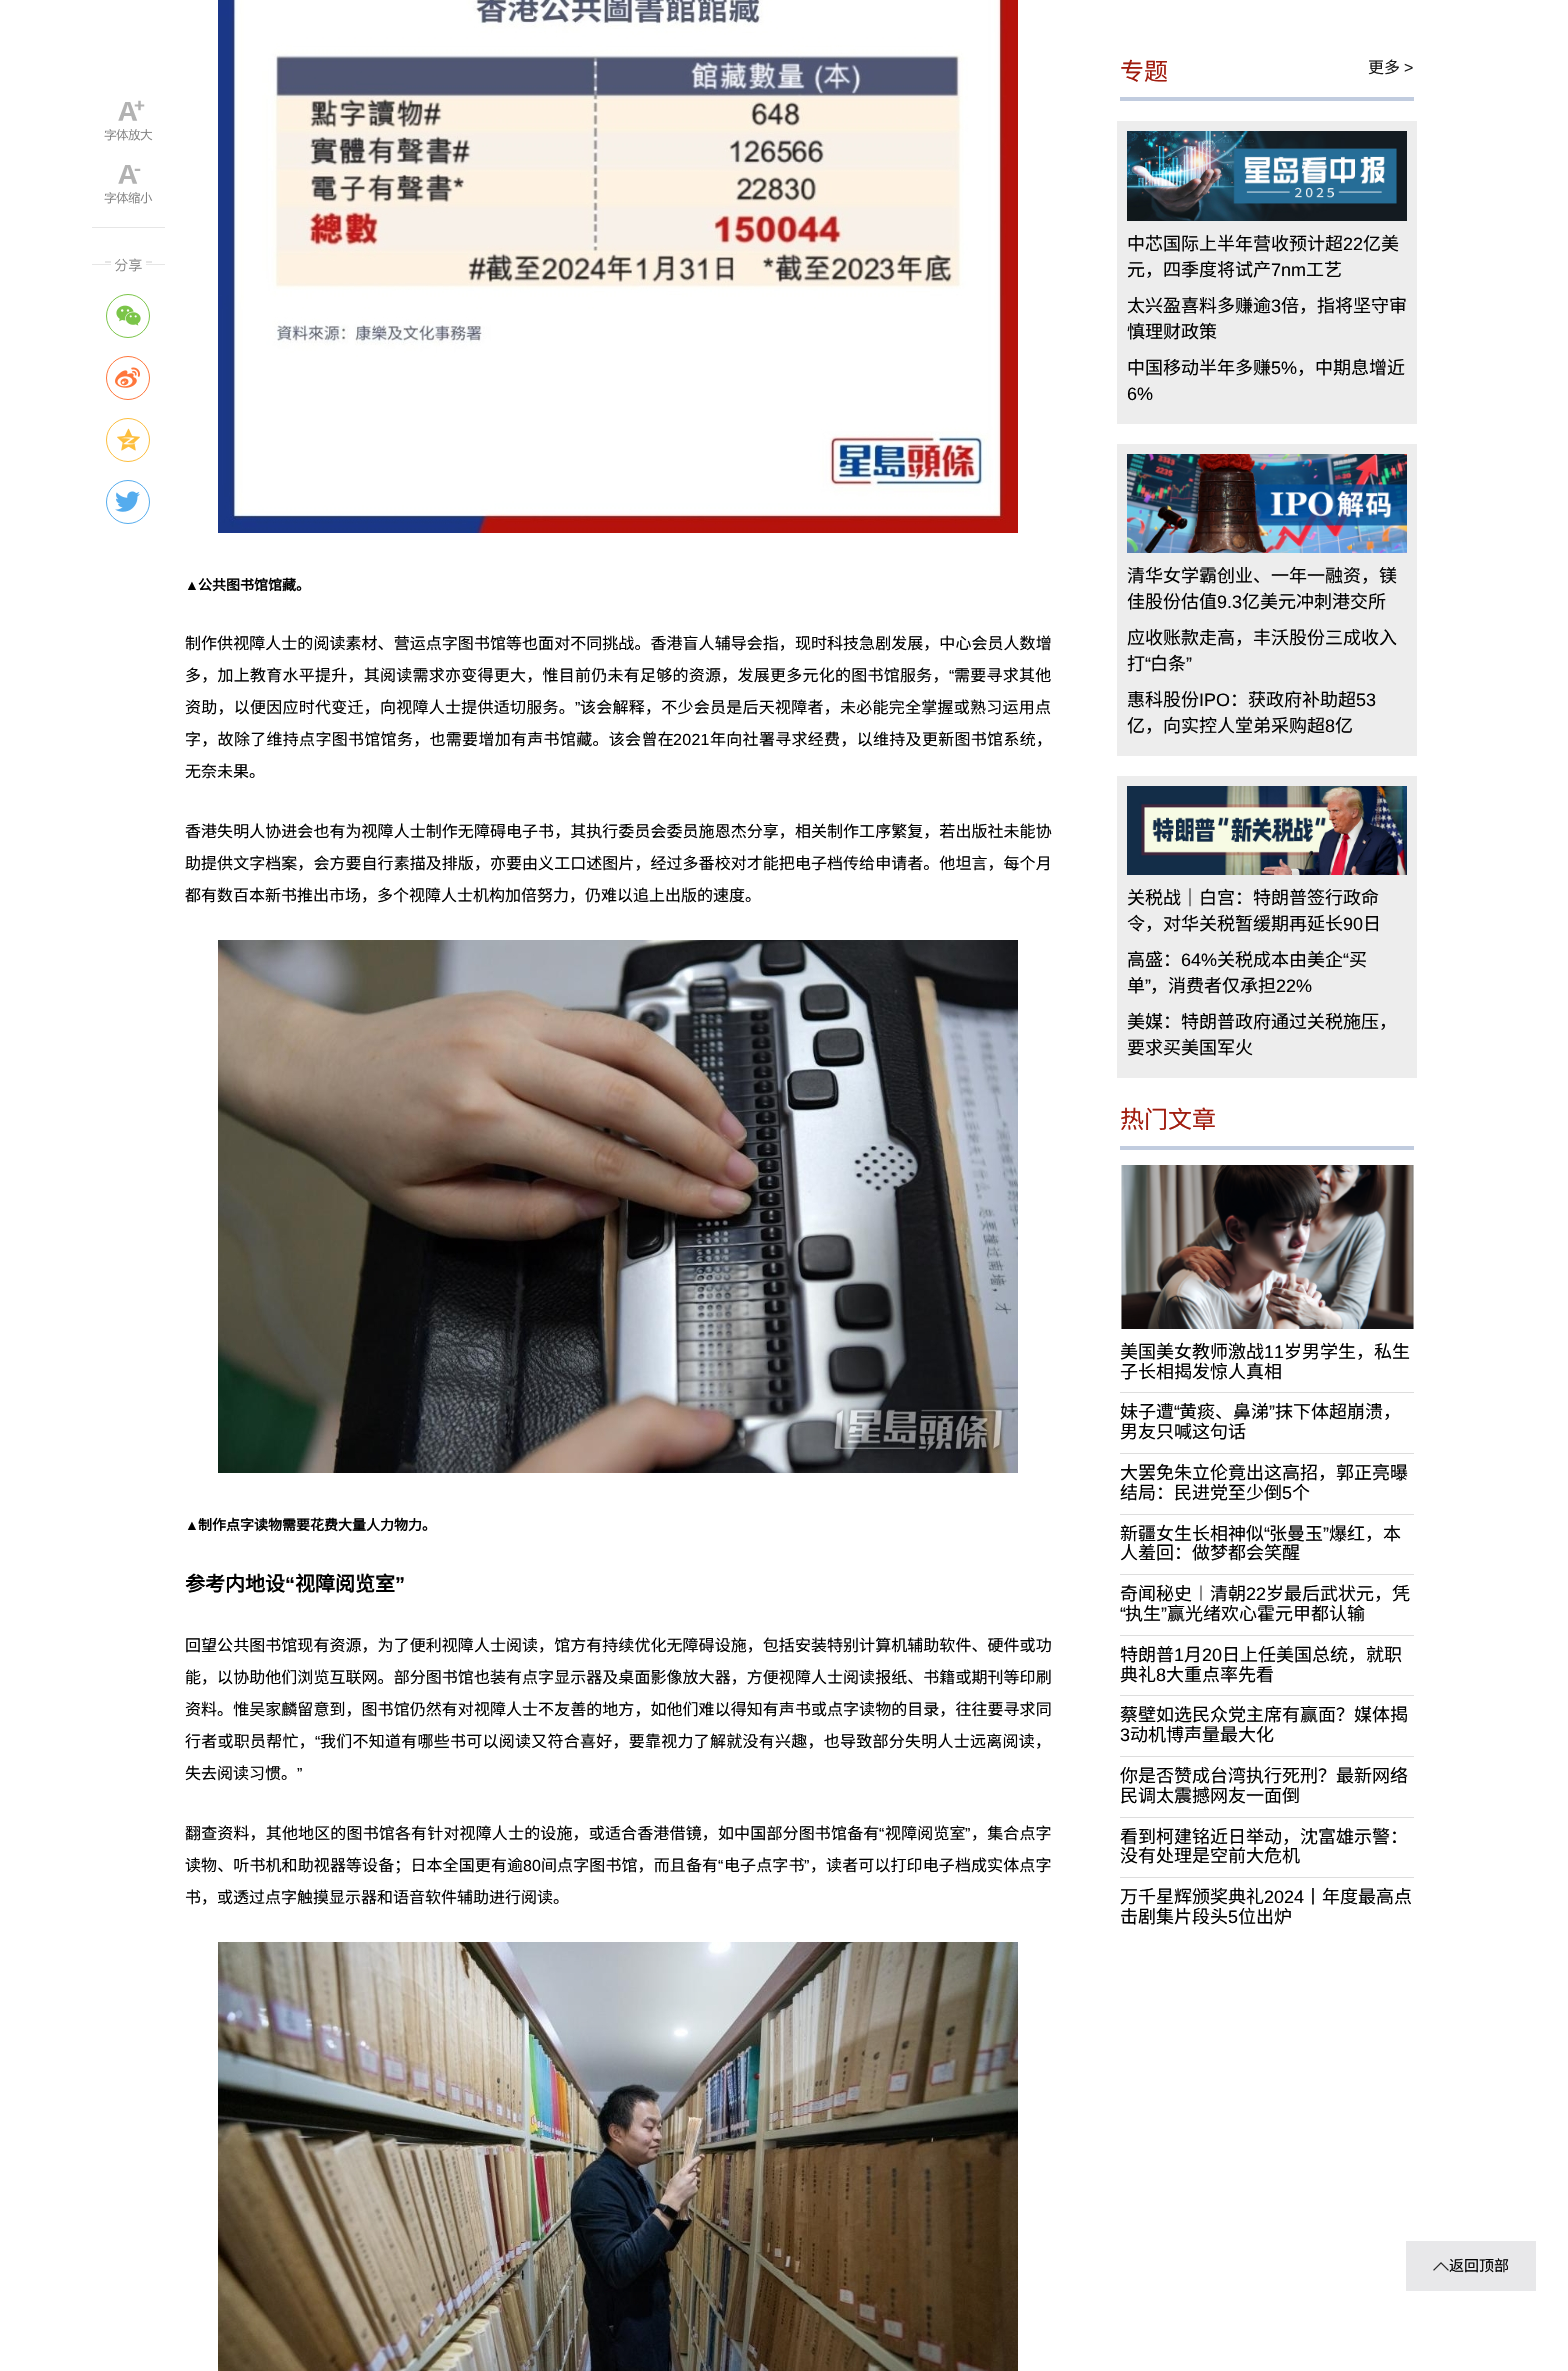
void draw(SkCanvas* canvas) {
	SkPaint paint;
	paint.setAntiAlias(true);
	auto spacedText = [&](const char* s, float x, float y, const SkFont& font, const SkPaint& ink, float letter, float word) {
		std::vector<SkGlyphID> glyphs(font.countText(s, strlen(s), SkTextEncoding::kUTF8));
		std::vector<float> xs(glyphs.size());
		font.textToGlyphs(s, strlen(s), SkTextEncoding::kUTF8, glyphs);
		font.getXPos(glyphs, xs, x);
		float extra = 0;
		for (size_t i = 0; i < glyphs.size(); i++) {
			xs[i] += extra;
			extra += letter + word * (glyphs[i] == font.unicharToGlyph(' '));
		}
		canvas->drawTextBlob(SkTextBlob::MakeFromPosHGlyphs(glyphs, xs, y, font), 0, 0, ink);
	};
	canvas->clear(0xffffffff);
	paint.setColor(0xffe6e6e6);
	canvas->drawRect(SkRect::MakeXYWH(92, 227, 73, 1), paint);
	canvas->drawImageRect(SkImages::DeferredFromEncodedData(SkData::MakeFromFileName("img1.png")), SkRect::MakeXYWH(104, 100, 49, 41), SkSamplingOptions());
	canvas->drawImageRect(SkImages::DeferredFromEncodedData(SkData::MakeFromFileName("img2.png")), SkRect::MakeXYWH(104, 165, 49, 39), SkSamplingOptions());
	canvas->drawImageRect(SkImages::DeferredFromEncodedData(SkData::MakeFromFileName("img3.png")), SkRect::MakeXYWH(92, 258, 73, 14), SkSamplingOptions());
	paint.setStroke(true);
	paint.setStrokeWidth(1);
	paint.setColor(0xff7bc549);
	canvas->drawCircle(128, 316, 21.5, paint);
	canvas->drawImageRect(SkImages::DeferredFromEncodedData(SkData::MakeFromFileName("img4.png")), SkRect::MakeXYWH(116, 305, 25, 21), SkSamplingOptions());
	paint.setColor(0xffff763b);
	canvas->drawCircle(128, 378, 21.5, paint);
	canvas->drawImageRect(SkImages::DeferredFromEncodedData(SkData::MakeFromFileName("img5.png")), SkRect::MakeXYWH(115, 367, 25, 21), SkSamplingOptions());
	paint.setColor(0xfffdbe3d);
	canvas->drawCircle(128, 440, 21.5, paint);
	canvas->drawImageRect(SkImages::DeferredFromEncodedData(SkData::MakeFromFileName("img6.png")), SkRect::MakeXYWH(117, 428, 23, 23), SkSamplingOptions());
	paint.setColor(0xff55acee);
	canvas->drawCircle(128, 502, 21.5, paint);
	canvas->drawImageRect(SkImages::DeferredFromEncodedData(SkData::MakeFromFileName("img7.png")), SkRect::MakeXYWH(115, 491, 25, 21), SkSamplingOptions());
	paint.setStroke(false);
	paint.setColor(0xffc1ccdf);
	canvas->drawRect(SkRect::MakeXYWH(1120, 97, 294, 4), paint);
	SkFont f1(fontMgr->matchFamilyStyle("Noto Sans CJK SC", SkFontStyle::Normal()), 24);
	f1.setSubpixel(true);
	paint.setColor(0xffa01c0e);
	canvas->drawString("专题", 1120, 80, f1, paint);
	SkFont f2(fontMgr->matchFamilyStyle("Noto Sans CJK SC", SkFontStyle::Normal()), 16);
	f2.setSubpixel(true);
	paint.setColor(0xff1a1a1a);
	canvas->drawString("更多", 1368, 73, f2, paint);
	SkFont f3(fontMgr->matchFamilyStyle("Liberation Sans", SkFontStyle::Normal()), 16);
	f3.setSubpixel(true);
	canvas->drawString(">", 1404, 73, f3, paint);
	paint.setColor(0xffededed);
	canvas->drawRect(SkRect::MakeXYWH(1117, 121, 300, 303), paint);
	canvas->drawImageRect(SkImages::DeferredFromEncodedData(SkData::MakeFromFileName("img8.png")), SkRect::MakeXYWH(1127, 131, 280, 90), SkSamplingOptions());
	SkFont f4(fontMgr->matchFamilyStyle("Noto Sans CJK SC", SkFontStyle::Normal()), 18);
	f4.setSubpixel(true);
	paint.setColor(0xff000000);
	canvas->drawString("中芯国际上半年营收预计超", 1127, 250, f4, paint);
	SkFont f5(fontMgr->matchFamilyStyle("Liberation Sans", SkFontStyle::Normal()), 18);
	f5.setSubpixel(true);
	canvas->drawString("22", 1343, 250, f5, paint);
	canvas->drawString("亿美", 1363, 250, f4, paint);
	canvas->drawString("元，四季度将试产", 1127, 276, f4, paint);
	canvas->drawString("7nm", 1271, 276, f5, paint);
	canvas->drawString("工艺", 1306, 276, f4, paint);
	canvas->drawString("太兴盈喜料多赚逾", 1127, 312, f4, paint);
	canvas->drawString("3", 1271, 312, f5, paint);
	canvas->drawString("倍，指将坚守审", 1281, 312, f4, paint);
	canvas->drawString("慎理财政策", 1127, 338, f4, paint);
	canvas->drawString("中国移动半年多赚", 1127, 374, f4, paint);
	canvas->drawString("5%", 1271, 374, f5, paint);
	canvas->drawString("，中期息增近", 1297, 374, f4, paint);
	canvas->drawString("6%", 1127, 400, f5, paint);
	paint.setColor(0xffededed);
	canvas->drawRect(SkRect::MakeXYWH(1117, 444, 300, 312), paint);
	canvas->drawImageRect(SkImages::DeferredFromEncodedData(SkData::MakeFromFileName("img9.png")), SkRect::MakeXYWH(1127, 454, 280, 99), SkSamplingOptions());
	paint.setColor(0xff000000);
	canvas->drawString("清华女学霸创业、一年一融资，镁", 1127, 582, f4, paint);
	canvas->drawString("佳股份估值", 1127, 608, f4, paint);
	canvas->drawString("9.3", 1217, 608, f5, paint);
	canvas->drawString("亿美元冲刺港交所", 1242, 608, f4, paint);
	canvas->drawString("应收账款走高，丰沃股份三成收入", 1127, 644, f4, paint);
	canvas->drawString("打", 1127, 670, f4, paint);
	canvas->drawString("“", 1145, 670, f5, paint);
	canvas->drawString("白条", 1150, 670, f4, paint);
	canvas->drawString("”", 1186, 670, f5, paint);
	canvas->drawString("惠科股份", 1127, 706, f4, paint);
	canvas->drawString("IPO", 1199, 706, f5, paint);
	canvas->drawString("：获政府补助超", 1230, 706, f4, paint);
	canvas->drawString("53", 1356, 706, f5, paint);
	canvas->drawString("亿，向实控人堂弟采购超", 1127, 732, f4, paint);
	canvas->drawString("8", 1325, 732, f5, paint);
	canvas->drawString("亿", 1335, 732, f4, paint);
	paint.setColor(0xffededed);
	canvas->drawRect(SkRect::MakeXYWH(1117, 776, 300, 302), paint);
	canvas->drawImageRect(SkImages::DeferredFromEncodedData(SkData::MakeFromFileName("img10.png")), SkRect::MakeXYWH(1127, 786, 280, 89), SkSamplingOptions());
	paint.setColor(0xff000000);
	canvas->drawString("关税战｜白宫：特朗普签行政命", 1127, 904, f4, paint);
	canvas->drawString("令，对华关税暂缓期再延长", 1127, 930, f4, paint);
	canvas->drawString("90", 1343, 930, f5, paint);
	canvas->drawString("日", 1363, 930, f4, paint);
	canvas->drawString("高盛：", 1127, 966, f4, paint);
	canvas->drawString("64%", 1181, 966, f5, paint);
	canvas->drawString("关税成本由美企", 1217, 966, f4, paint);
	canvas->drawString("“", 1343, 966, f5, paint);
	canvas->drawString("买", 1349, 966, f4, paint);
	canvas->drawString("单", 1127, 992, f4, paint);
	canvas->drawString("”", 1145, 992, f5, paint);
	canvas->drawString("，消费者仅承担", 1150, 992, f4, paint);
	canvas->drawString("22%", 1276, 992, f5, paint);
	canvas->drawString("美媒：特朗普政府通过关税施压，", 1127, 1028, f4, paint);
	canvas->drawString("要求买美国军火", 1127, 1054, f4, paint);
	paint.setColor(0xffc1ccdf);
	canvas->drawRect(SkRect::MakeXYWH(1120, 1146, 294, 4), paint);
	paint.setColor(0xffa01c0e);
	canvas->drawString("热门文章", 1120, 1128, f1, paint);
	canvas->drawImageRect(SkImages::DeferredFromEncodedData(SkData::MakeFromFileName("img11.png")), SkRect::MakeXYWH(1121, 1165, 293, 164), SkSamplingOptions());
	paint.setColor(0xffdddddd);
	canvas->drawRect(SkRect::MakeXYWH(1120, 1392, 294, 1), paint);
	paint.setColor(0xff000000);
	canvas->drawString("美国美女教师激战", 1120, 1358, f4, paint);
	canvas->drawString("11", 1264, 1358, f5, paint);
	canvas->drawString("岁男学生，私生", 1284, 1358, f4, paint);
	canvas->drawString("子长相揭发惊人真相", 1120, 1378, f4, paint);
	paint.setColor(0xffdddddd);
	canvas->drawRect(SkRect::MakeXYWH(1120, 1453, 294, 1), paint);
	paint.setColor(0xff000000);
	canvas->drawString("妹子遭", 1120, 1418, f4, paint);
	canvas->drawString("“", 1174, 1418, f5, paint);
	canvas->drawString("黄痰、鼻涕", 1179, 1418, f4, paint);
	canvas->drawString("”", 1269, 1418, f5, paint);
	canvas->drawString("抹下体超崩溃，", 1275, 1418, f4, paint);
	canvas->drawString("男友只喊这句话", 1120, 1438, f4, paint);
	paint.setColor(0xffdddddd);
	canvas->drawRect(SkRect::MakeXYWH(1120, 1514, 294, 1), paint);
	paint.setColor(0xff000000);
	canvas->drawString("大罢免朱立伦竟出这高招，郭正亮曝", 1120, 1479, f4, paint);
	canvas->drawString("结局：民进党至少倒", 1120, 1499, f4, paint);
	canvas->drawString("5", 1282, 1499, f5, paint);
	canvas->drawString("个", 1292, 1499, f4, paint);
	paint.setColor(0xffdddddd);
	canvas->drawRect(SkRect::MakeXYWH(1120, 1574, 294, 1), paint);
	paint.setColor(0xff000000);
	canvas->drawString("新疆女生长相神似", 1120, 1540, f4, paint);
	canvas->drawString("“", 1264, 1540, f5, paint);
	canvas->drawString("张曼玉", 1269, 1540, f4, paint);
	canvas->drawString("”", 1323, 1540, f5, paint);
	canvas->drawString("爆红，本", 1329, 1540, f4, paint);
	canvas->drawString("人羞回：做梦都会笑醒", 1120, 1559, f4, paint);
	paint.setColor(0xffdddddd);
	canvas->drawRect(SkRect::MakeXYWH(1120, 1635, 294, 1), paint);
	paint.setColor(0xff000000);
	canvas->drawString("奇闻秘史︱清朝", 1120, 1600, f4, paint);
	canvas->drawString("22", 1246, 1600, f5, paint);
	canvas->drawString("岁最后武状元，凭", 1266, 1600, f4, paint);
	canvas->drawString("“", 1120, 1620, f5, paint);
	canvas->drawString("执生", 1125, 1620, f4, paint);
	canvas->drawString("”", 1161, 1620, f5, paint);
	canvas->drawString("赢光绪欢心霍元甲都认输", 1167, 1620, f4, paint);
	paint.setColor(0xffdddddd);
	canvas->drawRect(SkRect::MakeXYWH(1120, 1695, 294, 1), paint);
	paint.setColor(0xff000000);
	canvas->drawString("特朗普", 1120, 1661, f4, paint);
	canvas->drawString("1", 1174, 1661, f5, paint);
	canvas->drawString("月", 1184, 1661, f4, paint);
	canvas->drawString("20", 1202, 1661, f5, paint);
	canvas->drawString("日上任美国总统，就职", 1222, 1661, f4, paint);
	canvas->drawString("典礼", 1120, 1681, f4, paint);
	canvas->drawString("8", 1156, 1681, f5, paint);
	canvas->drawString("大重点率先看", 1166, 1681, f4, paint);
	paint.setColor(0xffdddddd);
	canvas->drawRect(SkRect::MakeXYWH(1120, 1756, 294, 1), paint);
	paint.setColor(0xff000000);
	canvas->drawString("蔡壁如选民众党主席有赢面？媒体揭", 1120, 1721, f4, paint);
	canvas->drawString("3", 1120, 1741, f5, paint);
	canvas->drawString("动机博声量最大化", 1130, 1741, f4, paint);
	paint.setColor(0xffdddddd);
	canvas->drawRect(SkRect::MakeXYWH(1120, 1817, 294, 1), paint);
	paint.setColor(0xff000000);
	canvas->drawString("你是否赞成台湾执行死刑？最新网络", 1120, 1782, f4, paint);
	canvas->drawString("民调太震撼网友一面倒", 1120, 1802, f4, paint);
	paint.setColor(0xffdddddd);
	canvas->drawRect(SkRect::MakeXYWH(1120, 1877, 294, 1), paint);
	paint.setColor(0xff000000);
	canvas->drawString("看到柯建铭近日举动，沈富雄示警：", 1120, 1843, f4, paint);
	canvas->drawString("没有处理是空前大危机", 1120, 1862, f4, paint);
	canvas->drawString("万千星辉颁奖典礼", 1120, 1903, f4, paint);
	canvas->drawString("2024", 1264, 1903, f5, paint);
	canvas->drawString("丨年度最高点", 1304, 1903, f4, paint);
	canvas->drawString("击剧集片段头", 1120, 1923, f4, paint);
	canvas->drawString("5", 1228, 1923, f5, paint);
	canvas->drawString("位出炉", 1238, 1923, f4, paint);
	canvas->drawImageRect(SkImages::DeferredFromEncodedData(SkData::MakeFromFileName("img12.png")), SkRect::MakeXYWH(218, 0, 800, 533), SkSamplingOptions());
	SkFont f6(fontMgr->matchFamilyStyle("Liberation Serif", SkFontStyle::Bold()), 14);
	f6.setSubpixel(true);
	canvas->drawString("▲", 185, 590, f6, paint);
	SkFont f7(fontMgr->matchFamilyStyle("Noto Sans CJK SC", SkFontStyle::Bold()), 14);
	f7.setSubpixel(true);
	canvas->drawString("公共图书馆馆藏。", 198, 590, f7, paint);
	spacedText("制作供视障人士的阅读素材、营运点字图书馆等也面对不同挑战。香港盲人辅导会指，现时科技急剧发展，中心会员人数增", 185, 649, f2, paint, 0.05, 0);
	spacedText("多，加上教育水平提升，其阅读需求亦变得更大，惟目前仍未有足够的资源，发展更多元化的图书馆服务，", 185, 681, f2, paint, 0.25, 0);
	spacedText("“", 949, 681, f3, paint, 0.25, 0);
	spacedText("需要寻求其他", 954, 681, f2, paint, 0.25, 0);
	spacedText("资助，以便因应时代变迁，向视障人士提供适切服务。", 185, 713, f2, paint, 0.25, 0);
	spacedText("”", 575, 713, f3, paint, 0.25, 0);
	spacedText("该会解释，不少会员是后天视障者，未必能完全掌握或熟习运用点", 580, 713, f2, paint, 0.25, 0);
	spacedText("字，故除了维持点字图书馆馆务，也需要增加有声书馆藏。该会曾在", 185, 745, f2, paint, 0.3, 0);
	spacedText("2021", 673, 745, f3, paint, 0.3, 0);
	spacedText("年向社署寻求经费，以维持及更新图书馆系统，", 710, 745, f2, paint, 0.3, 0);
	canvas->drawString("无奈未果。", 185, 777, f2, paint);
	spacedText("香港失明人协进会也有为视障人士制作无障碍电子书，其执行委员会委员施恩杰分享，相关制作工序繁复，若出版社未能协", 185, 837, f2, paint, 0.05, 0);
	spacedText("助提供文字档案，会方要自行素描及排版，亦要由义工口述图片，经过多番校对才能把电子档传给申请者。他坦言，每个月", 185, 869, f2, paint, 0.05, 0);
	canvas->drawString("都有数百本新书推出市场，多个视障人士机构加倍努力，仍难以追上出版的速度。", 185, 901, f2, paint);
	canvas->drawImageRect(SkImages::DeferredFromEncodedData(SkData::MakeFromFileName("img13.png")), SkRect::MakeXYWH(218, 940, 800, 533), SkSamplingOptions());
	canvas->drawString("▲", 185, 1530, f6, paint);
	canvas->drawString("制作点字读物需要花费大量人力物力。", 198, 1530, f7, paint);
	SkFont f8(fontMgr->matchFamilyStyle("Noto Sans CJK SC", SkFontStyle::Bold()), 20);
	f8.setSubpixel(true);
	canvas->drawString("参考内地设", 185, 1591, f8, paint);
	SkFont f9(fontMgr->matchFamilyStyle("Liberation Sans", SkFontStyle::Bold()), 20);
	f9.setSubpixel(true);
	canvas->drawString("“", 285, 1591, f9, paint);
	canvas->drawString("视障阅览室", 295, 1591, f8, paint);
	canvas->drawString("”", 395, 1591, f9, paint);
	spacedText("回望公共图书馆现有资源，为了便利视障人士阅读，馆方有持续优化无障碍设施，包括安装特别计算机辅助软件、硬件或功", 185, 1651, f2, paint, 0.05, 0);
	spacedText("能，以协助他们浏览互联网。部分图书馆也装有点字显示器及桌面影像放大器，方便视障人士阅读报纸、书籍或期刊等印刷", 185, 1683, f2, paint, 0.05, 0);
	spacedText("资料。惟吴家麟留意到，图书馆仍然有对视障人士不友善的地方，如他们难以得知有声书或点字读物的目录，往往要寻求同", 185, 1715, f2, paint, 0.05, 0);
	spacedText("行者或职员帮忙，", 185, 1747, f2, paint, 0.25, 0);
	spacedText("“", 315, 1747, f3, paint, 0.25, 0);
	spacedText("我们不知道有哪些书可以阅读又符合喜好，要靠视力了解就没有兴趣，也导致部分失明人士远离阅读，", 320, 1747, f2, paint, 0.25, 0);
	canvas->drawString("失去阅读习惯。", 185, 1779, f2, paint);
	canvas->drawString("”", 297, 1779, f3, paint);
	spacedText("翻查资料，其他地区的图书馆各有针对视障人士的设施，或适合香港借镜，如中国部分图书馆备有", 185, 1839, f2, paint, 0.15, 0);
	spacedText("“", 879, 1839, f3, paint, 0.15, 0);
	spacedText("视障阅览室", 885, 1839, f2, paint, 0.15, 0);
	spacedText("”", 965, 1839, f3, paint, 0.15, 0);
	spacedText("，集合点字", 971, 1839, f2, paint, 0.15, 0);
	spacedText("读物、听书机和助视器等设备；日本全国更有逾", 185, 1871, f2, paint, 0.1, 0);
	spacedText("80", 523, 1871, f3, paint, 0.1, 0);
	spacedText("间点字图书馆，而且备有", 541, 1871, f2, paint, 0.1, 0);
	spacedText("“", 718, 1871, f3, paint, 0.1, 0);
	spacedText("电子点字书", 724, 1871, f2, paint, 0.1, 0);
	spacedText("”", 804, 1871, f3, paint, 0.1, 0);
	spacedText("，读者可以打印电子档成实体点字", 810, 1871, f2, paint, 0.1, 0);
	canvas->drawString("书，或透过点字触摸显示器和语音软件辅助进行阅读。", 185, 1903, f2, paint);
	canvas->drawImageRect(SkImages::DeferredFromEncodedData(SkData::MakeFromFileName("img14.png")), SkRect::MakeXYWH(218, 1942, 800, 429), SkSamplingOptions());
	paint.setColor(0xffe8e8ea);
	canvas->drawRect(SkRect::MakeXYWH(1406, 2241, 130, 50), paint);
	canvas->drawImageRect(SkImages::DeferredFromEncodedData(SkData::MakeFromFileName("img15.png")), SkRect::MakeXYWH(1433, 2262, 16, 9), SkSamplingOptions());
	SkFont f10(fontMgr->matchFamilyStyle("Noto Sans CJK SC", SkFontStyle::Normal()), 15);
	f10.setSubpixel(true);
	paint.setColor(0xff000000);
	canvas->drawString("返回顶部", 1449, 2271, f10, paint);
}
